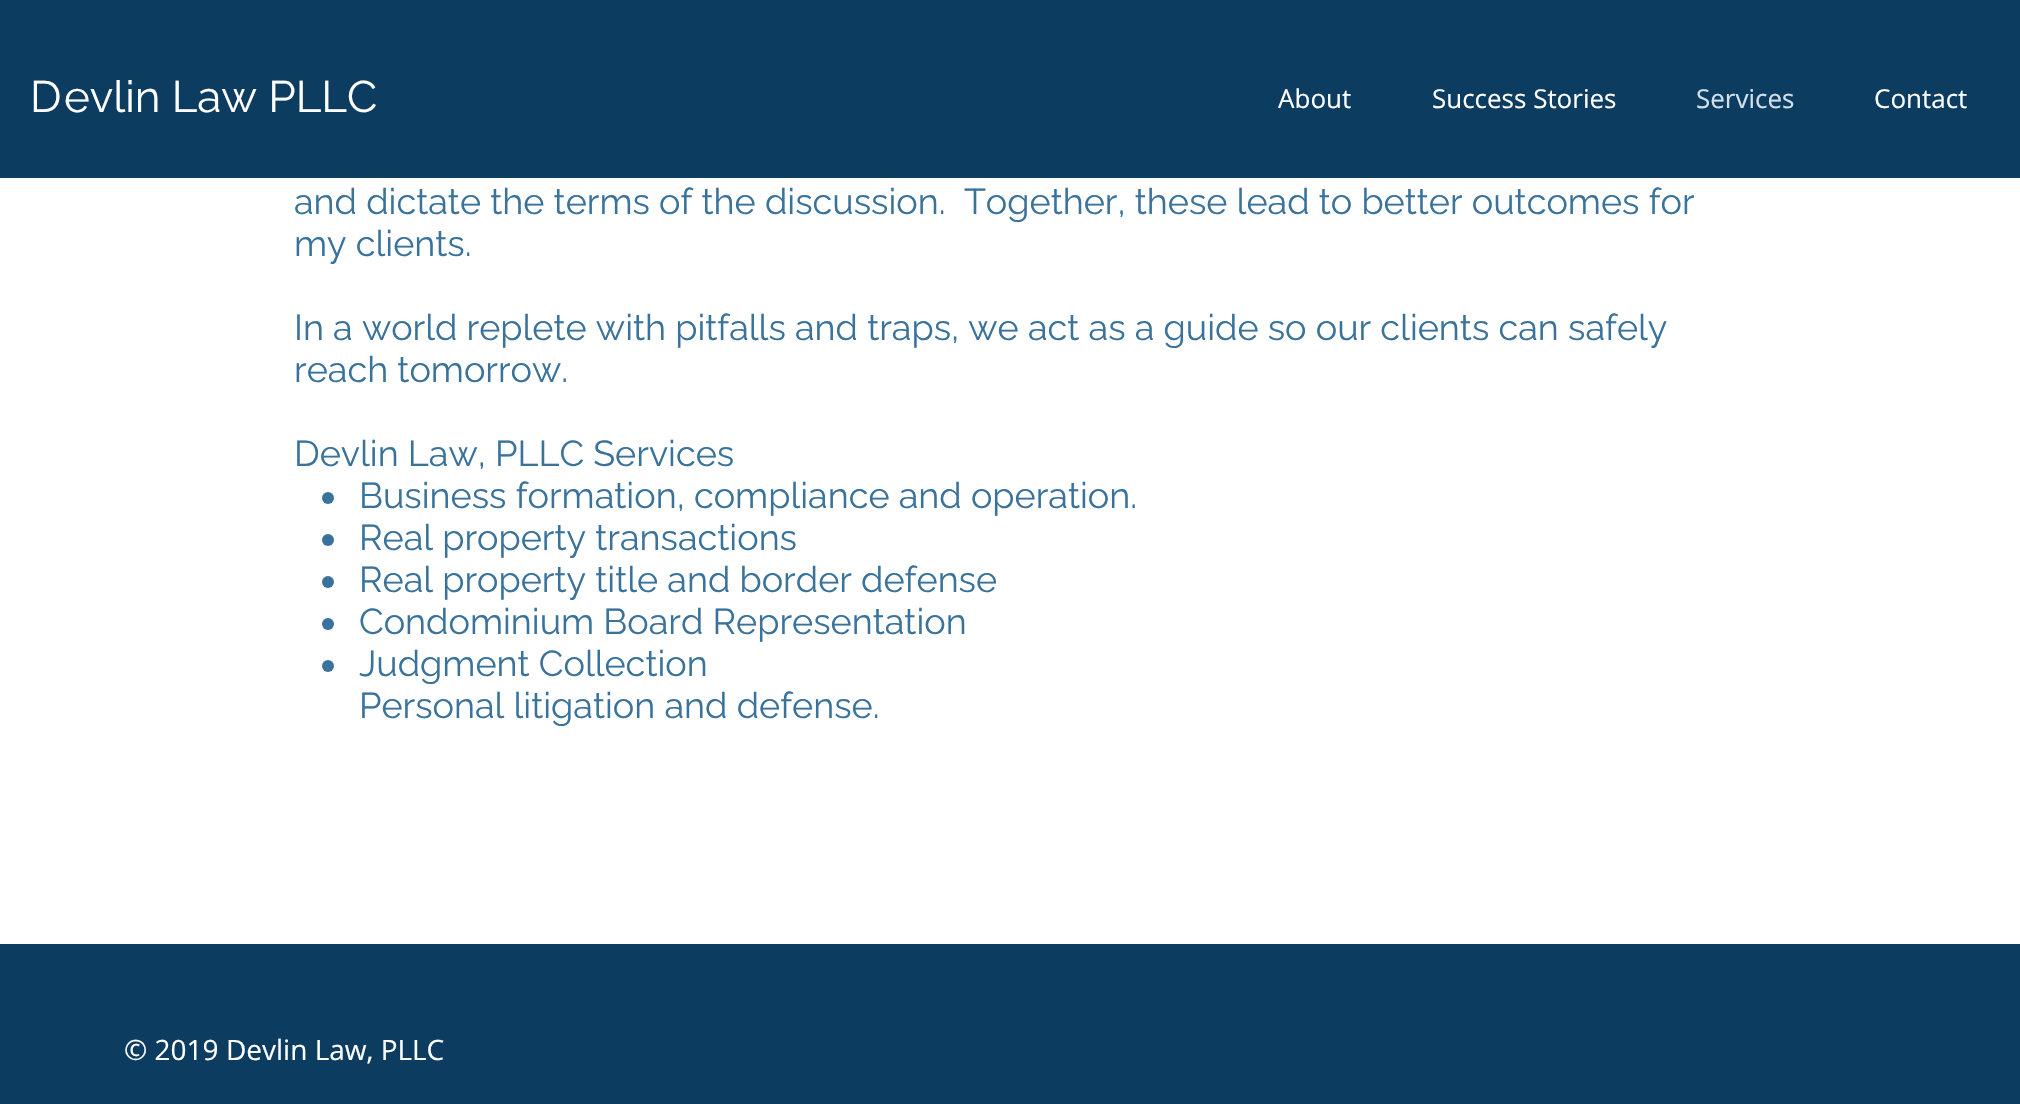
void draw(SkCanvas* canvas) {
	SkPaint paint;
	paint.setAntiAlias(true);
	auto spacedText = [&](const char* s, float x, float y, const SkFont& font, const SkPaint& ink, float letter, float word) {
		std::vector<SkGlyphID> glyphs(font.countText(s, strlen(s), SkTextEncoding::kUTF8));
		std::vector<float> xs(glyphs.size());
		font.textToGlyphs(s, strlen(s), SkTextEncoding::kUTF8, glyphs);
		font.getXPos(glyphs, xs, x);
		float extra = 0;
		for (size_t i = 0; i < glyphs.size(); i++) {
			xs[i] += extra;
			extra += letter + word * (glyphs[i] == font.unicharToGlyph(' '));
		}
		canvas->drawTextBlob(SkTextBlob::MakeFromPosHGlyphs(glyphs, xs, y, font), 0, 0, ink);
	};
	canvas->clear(0xffffffff);
	paint.setColor(0xff0c3c60);
	canvas->drawRect(SkRect::MakeXYWH(0, 0, 2020, 178), paint);
	SkFont f1(fontMgr->matchFamilyStyle("Raleway", SkFontStyle::Normal()), 44);
	f1.setSubpixel(true);
	paint.setColor(0xffffffff);
	spacedText("D", 30, 112, f1, paint, 3, 0);
	canvas->drawString("evlin Law PLLC", 64, 112, f1, paint);
	SkFont f2(fontMgr->matchFamilyStyle("Open Sans", SkFontStyle::Normal()), 26);
	f2.setSubpixel(true);
	canvas->drawString("About", 1278, 108, f2, paint);
	canvas->drawString("Success Stories", 1432, 108, f2, paint);
	paint.setColor(0xffd1e0eb);
	canvas->drawString("Services", 1696, 108, f2, paint);
	paint.setColor(0xffffffff);
	canvas->drawString("Contact", 1874, 108, f2, paint);
	SkFont f3(fontMgr->matchFamilyStyle("Raleway", SkFontStyle::Normal()), 36);
	f3.setSubpixel(true);
	paint.setColor(0xff39729b);
	canvas->drawString("and dictate the terms of the discussion.  Together, these lead to better outcomes for", 294, 214, f3, paint);
	canvas->drawString("my clients.", 294, 256, f3, paint);
	canvas->drawString("In a world replete with pitfalls and traps, we act as a guide so our clients can safely", 294, 340, f3, paint);
	canvas->drawString("reach tomorrow.", 294, 382, f3, paint);
	canvas->drawString("Devlin Law, PLLC Services", 294, 466, f3, paint);
	canvas->drawCircle(328, 498, 6, paint);
	canvas->drawString("Business formation, compliance and operation.", 359, 508, f3, paint);
	canvas->drawCircle(328, 540, 6, paint);
	canvas->drawString("Real property transactions", 359, 550, f3, paint);
	canvas->drawCircle(328, 582, 6, paint);
	canvas->drawString("Real property title and border defense", 359, 592, f3, paint);
	canvas->drawCircle(328, 624, 6, paint);
	canvas->drawString("Condominium Board Representation", 359, 634, f3, paint);
	canvas->drawCircle(328, 666, 6, paint);
	canvas->drawString("Judgment Collection", 359, 676, f3, paint);
	canvas->drawString("Personal litigation and defense.", 359, 718, f3, paint);
	paint.setColor(0xff0c3c60);
	canvas->drawRect(SkRect::MakeXYWH(0, 944, 2020, 160), paint);
	SkFont f4(fontMgr->matchFamilyStyle("Open Sans", SkFontStyle::Normal()), 28);
	f4.setSubpixel(true);
	paint.setColor(0xffffffff);
	canvas->drawString("© 2019 Devlin Law, PLLC", 124, 1060, f4, paint);
}
